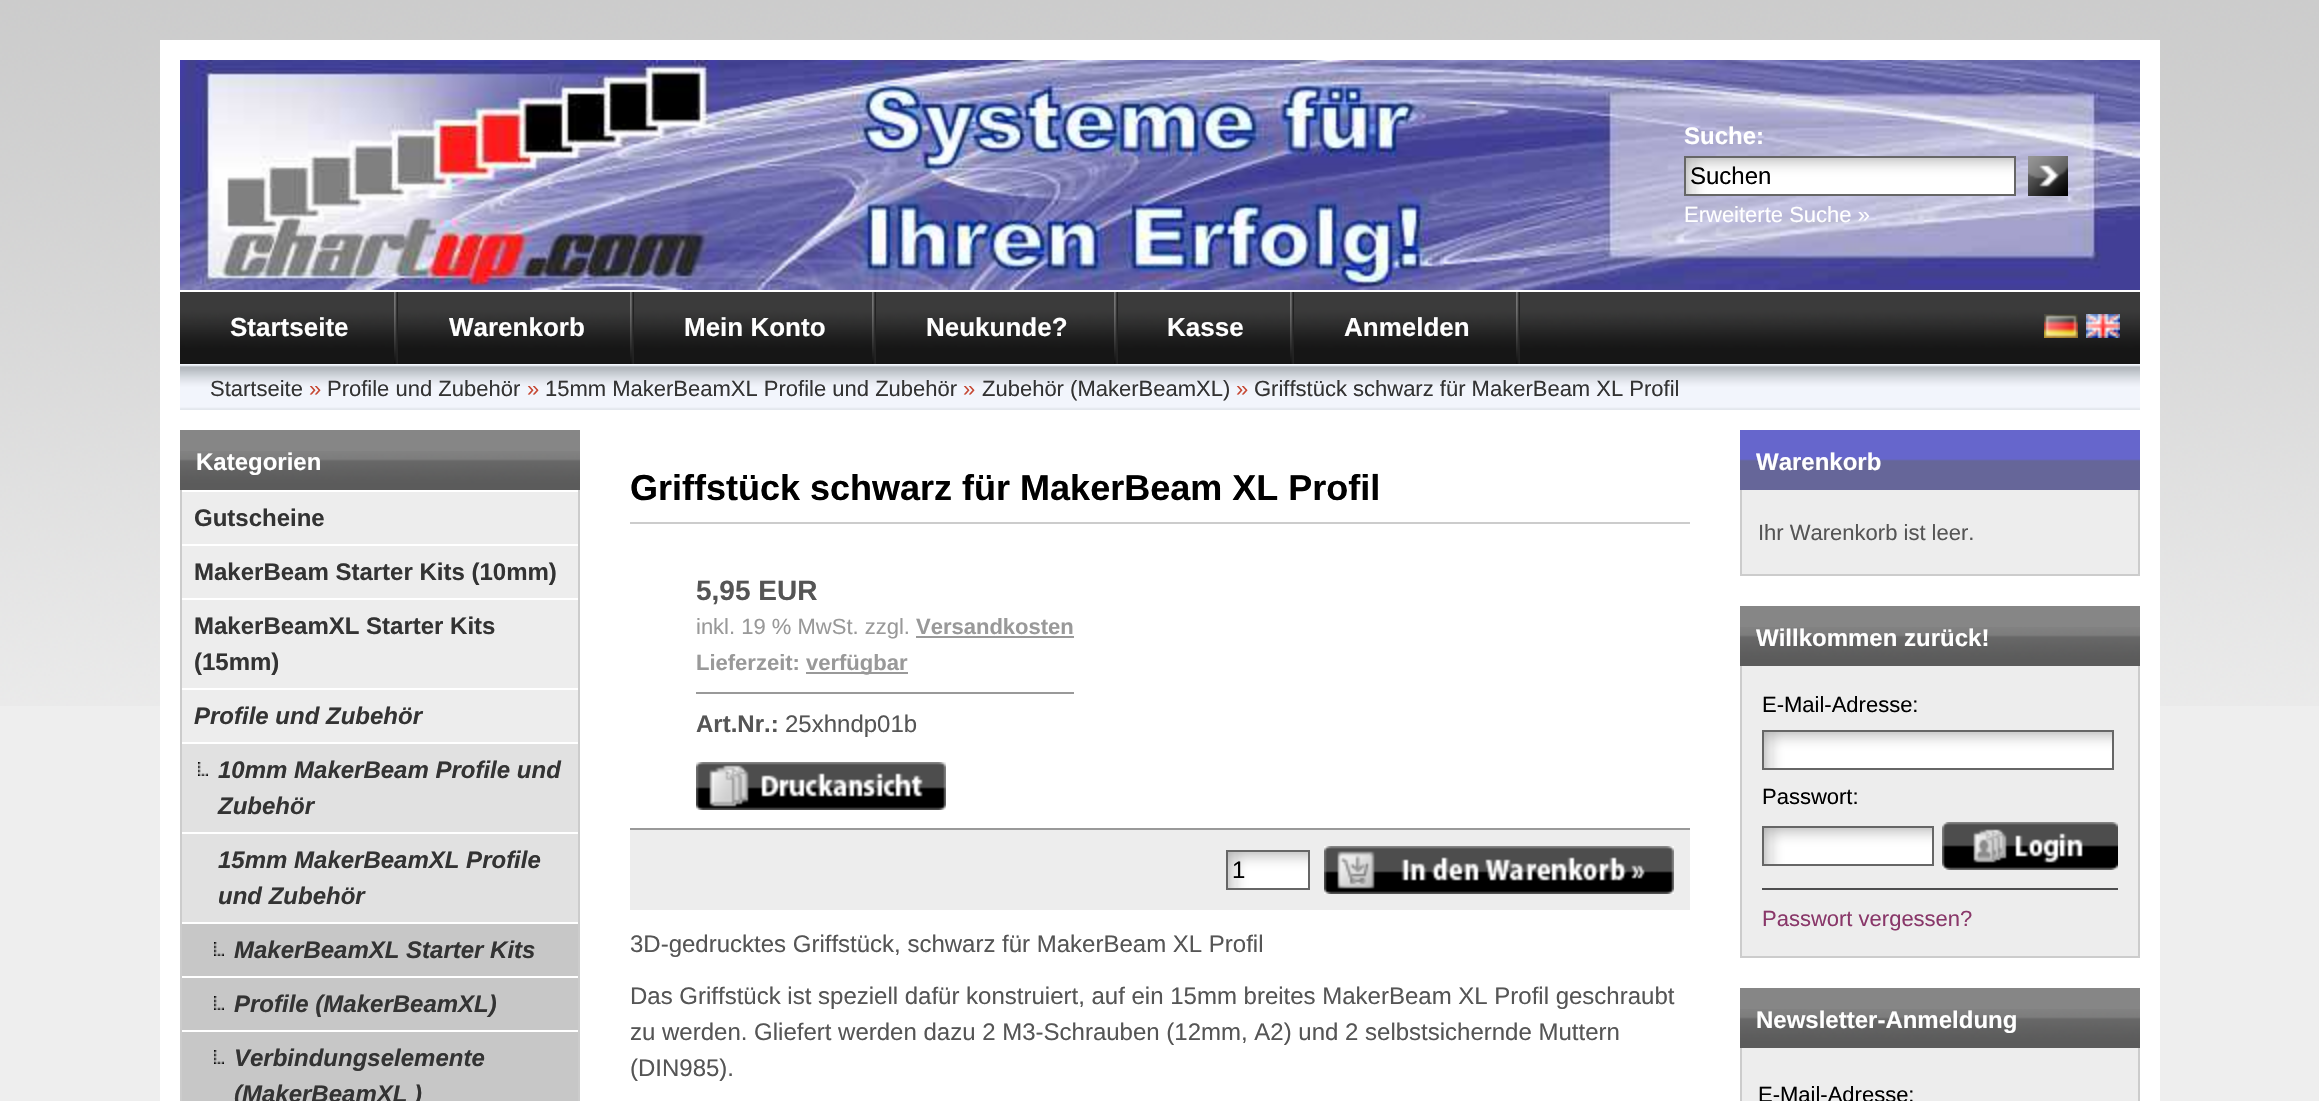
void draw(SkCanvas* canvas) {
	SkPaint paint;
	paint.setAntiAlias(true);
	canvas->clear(0xffeeeeee);
	canvas->drawImageRect(SkImages::DeferredFromEncodedData(SkData::MakeFromFileName("img1.png")), SkRect::MakeXYWH(0, 0, 2319, 706), SkSamplingOptions());
	paint.setColor(0xffffffff);
	canvas->drawRect(SkRect::MakeXYWH(180, 410, 1960, 691), paint);
	canvas->drawRect(SkRect::MakeXYWH(2140, 40, 20, 1061), paint);
	canvas->drawRect(SkRect::MakeXYWH(160, 40, 20, 1061), paint);
	canvas->drawImageRect(SkImages::DeferredFromEncodedData(SkData::MakeFromFileName("img2.png")), SkRect::MakeXYWH(180, 60, 1960, 230), SkSamplingOptions());
	canvas->drawRect(SkRect::MakeXYWH(180, 40, 1960, 20), paint);
	canvas->drawRect(SkRect::MakeXYWH(180, 290, 1960, 2), paint);
	SkFont f1(fontMgr->matchFamilyStyle("Liberation Sans", SkFontStyle::Bold()), 24);
	f1.setSubpixel(true);
	canvas->drawString("Suche:", 1684, 144, f1, paint);
	canvas->drawImageRect(SkImages::DeferredFromEncodedData(SkData::MakeFromFileName("img3.png")), SkRect::MakeXYWH(1686, 158, 328, 36), SkSamplingOptions());
	paint.setStroke(true);
	paint.setStrokeWidth(2);
	paint.setColor(0xff666666);
	canvas->drawRect(SkRect::MakeXYWH(1685, 157, 330, 38), paint);
	SkFont f2(fontMgr->matchFamilyStyle("Liberation Sans", SkFontStyle::Normal()), 24);
	f2.setSubpixel(true);
	paint.setStroke(false);
	paint.setColor(0xff000000);
	canvas->drawString("Suchen", 1690, 184, f2, paint);
	canvas->drawImageRect(SkImages::DeferredFromEncodedData(SkData::MakeFromFileName("img4.png")), SkRect::MakeXYWH(2028, 156, 40, 40), SkSamplingOptions());
	SkFont f3(fontMgr->matchFamilyStyle("Liberation Sans", SkFontStyle::Normal()), 22);
	f3.setSubpixel(true);
	paint.setColor(0xffffffff);
	canvas->drawString("Erweiterte Suche »", 1684, 222, f3, paint);
	canvas->drawImageRect(SkImages::DeferredFromEncodedData(SkData::MakeFromFileName("img5.png")), SkRect::MakeXYWH(180, 292, 1960, 72), SkSamplingOptions());
	canvas->drawImageRect(SkImages::DeferredFromEncodedData(SkData::MakeFromFileName("img6.png")), SkRect::MakeXYWH(394, 292, 4, 72), SkSamplingOptions());
	SkFont f4(fontMgr->matchFamilyStyle("Liberation Sans", SkFontStyle::Bold()), 26);
	f4.setSubpixel(true);
	canvas->drawString("Startseite", 230, 336, f4, paint);
	canvas->drawImageRect(SkImages::DeferredFromEncodedData(SkData::MakeFromFileName("img6.png")), SkRect::MakeXYWH(630, 292, 4, 72), SkSamplingOptions());
	canvas->drawString("Warenkorb", 449, 336, f4, paint);
	canvas->drawImageRect(SkImages::DeferredFromEncodedData(SkData::MakeFromFileName("img6.png")), SkRect::MakeXYWH(872, 292, 4, 72), SkSamplingOptions());
	canvas->drawString("Mein Konto", 684, 336, f4, paint);
	canvas->drawImageRect(SkImages::DeferredFromEncodedData(SkData::MakeFromFileName("img6.png")), SkRect::MakeXYWH(1114, 292, 4, 72), SkSamplingOptions());
	canvas->drawString("Neukunde?", 926, 336, f4, paint);
	canvas->drawImageRect(SkImages::DeferredFromEncodedData(SkData::MakeFromFileName("img6.png")), SkRect::MakeXYWH(1290, 292, 4, 72), SkSamplingOptions());
	canvas->drawString("Kasse", 1167, 336, f4, paint);
	canvas->drawImageRect(SkImages::DeferredFromEncodedData(SkData::MakeFromFileName("img6.png")), SkRect::MakeXYWH(1516, 292, 4, 72), SkSamplingOptions());
	canvas->drawString("Anmelden", 1344, 336, f4, paint);
	canvas->drawImageRect(SkImages::DeferredFromEncodedData(SkData::MakeFromFileName("img7.png")), SkRect::MakeXYWH(2044, 314, 34, 24), SkSamplingOptions());
	canvas->drawImageRect(SkImages::DeferredFromEncodedData(SkData::MakeFromFileName("img8.png")), SkRect::MakeXYWH(2086, 314, 34, 24), SkSamplingOptions());
	canvas->drawImageRect(SkImages::DeferredFromEncodedData(SkData::MakeFromFileName("img9.png")), SkRect::MakeXYWH(180, 364, 1960, 46), SkSamplingOptions());
	paint.setColor(0xff333333);
	canvas->drawString("Startseite", 210, 396, f3, paint);
	paint.setColor(0xffc64934);
	canvas->drawString("»", 309, 396, f3, paint);
	paint.setColor(0xff333333);
	canvas->drawString("Profile und Zubehör", 327, 396, f3, paint);
	paint.setColor(0xffc64934);
	canvas->drawString("»", 527, 396, f3, paint);
	paint.setColor(0xff333333);
	canvas->drawString("15mm MakerBeamXL Profile und Zubehör", 545, 396, f3, paint);
	paint.setColor(0xffc64934);
	canvas->drawString("»", 963, 396, f3, paint);
	paint.setColor(0xff333333);
	canvas->drawString("Zubehör (MakerBeamXL)", 982, 396, f3, paint);
	paint.setColor(0xffc64934);
	canvas->drawString("»", 1236, 396, f3, paint);
	paint.setColor(0xff333333);
	canvas->drawString("Griffstück schwarz für MakerBeam XL Profil", 1254, 396, f3, paint);
	paint.setColor(0xff868686);
	canvas->drawRect(SkRect::MakeXYWH(180, 430, 400, 21), paint);
	canvas->drawImageRect(SkImages::DeferredFromEncodedData(SkData::MakeFromFileName("img10.png")), SkRect::MakeXYWH(180, 451, 400, 39), SkSamplingOptions());
	paint.setColor(0xffffffff);
	canvas->drawString("Kategorien", 196, 470, f1, paint);
	paint.setColor(0xffededed);
	canvas->drawRect(SkRect::MakeXYWH(182, 492, 396, 250), paint);
	paint.setColor(0xffcccccc);
	canvas->drawRect(SkRect::MakeXYWH(578, 490, 2, 611), paint);
	canvas->drawRect(SkRect::MakeXYWH(180, 490, 2, 611), paint);
	paint.setColor(0xff333333);
	canvas->drawString("Gutscheine", 194, 526, f1, paint);
	paint.setColor(0xffffffff);
	canvas->drawRect(SkRect::MakeXYWH(182, 544, 396, 2), paint);
	paint.setColor(0xff333333);
	canvas->drawString("MakerBeam Starter Kits (10mm)", 194, 580, f1, paint);
	paint.setColor(0xffffffff);
	canvas->drawRect(SkRect::MakeXYWH(182, 598, 396, 2), paint);
	paint.setColor(0xff333333);
	canvas->drawString("MakerBeamXL Starter Kits", 194, 634, f1, paint);
	canvas->drawString("(15mm)", 194, 670, f1, paint);
	paint.setColor(0xffffffff);
	canvas->drawRect(SkRect::MakeXYWH(182, 688, 396, 2), paint);
	SkFont f5(fontMgr->matchFamilyStyle("Liberation Sans", SkFontStyle::BoldItalic()), 24);
	f5.setSubpixel(true);
	paint.setColor(0xff333333);
	canvas->drawString("Profile und Zubehör", 194, 724, f5, paint);
	paint.setColor(0xffe1e1e1);
	canvas->drawRect(SkRect::MakeXYWH(182, 744, 396, 88), paint);
	canvas->drawImageRect(SkImages::DeferredFromEncodedData(SkData::MakeFromFileName("img11.png")), SkRect::MakeXYWH(198, 762, 10, 14), SkSamplingOptions());
	paint.setColor(0xff333333);
	canvas->drawString("10mm MakerBeam Profile und", 218, 778, f5, paint);
	canvas->drawString("Zubehör", 218, 814, f5, paint);
	paint.setColor(0xffe1e1e1);
	canvas->drawRect(SkRect::MakeXYWH(182, 834, 396, 88), paint);
	paint.setColor(0xff333333);
	canvas->drawString("15mm MakerBeamXL Profile", 218, 868, f5, paint);
	canvas->drawString("und Zubehör", 218, 904, f5, paint);
	paint.setColor(0xffc7c7c7);
	canvas->drawRect(SkRect::MakeXYWH(182, 924, 396, 52), paint);
	canvas->drawImageRect(SkImages::DeferredFromEncodedData(SkData::MakeFromFileName("img12.png")), SkRect::MakeXYWH(214, 942, 10, 14), SkSamplingOptions());
	paint.setColor(0xff333333);
	canvas->drawString("MakerBeamXL Starter Kits", 234, 958, f5, paint);
	paint.setColor(0xffc7c7c7);
	canvas->drawRect(SkRect::MakeXYWH(182, 978, 396, 52), paint);
	canvas->drawImageRect(SkImages::DeferredFromEncodedData(SkData::MakeFromFileName("img12.png")), SkRect::MakeXYWH(214, 996, 10, 14), SkSamplingOptions());
	paint.setColor(0xff333333);
	canvas->drawString("Profile (MakerBeamXL)", 234, 1012, f5, paint);
	paint.setColor(0xffc7c7c7);
	canvas->drawRect(SkRect::MakeXYWH(182, 1032, 396, 69), paint);
	canvas->drawImageRect(SkImages::DeferredFromEncodedData(SkData::MakeFromFileName("img12.png")), SkRect::MakeXYWH(214, 1050, 10, 14), SkSamplingOptions());
	paint.setColor(0xff333333);
	canvas->drawString("Verbindungselemente", 234, 1066, f5, paint);
	canvas->drawString("(MakerBeamXL )", 234, 1102, f5, paint);
	paint.setColor(0xffcccccc);
	canvas->drawRect(SkRect::MakeXYWH(630, 522, 1060, 2), paint);
	SkFont f6(fontMgr->matchFamilyStyle("Liberation Sans", SkFontStyle::Bold()), 36);
	f6.setSubpixel(true);
	paint.setColor(0xff000000);
	canvas->drawString("Griffstück schwarz für MakerBeam XL Profil", 630, 500, f6, paint);
	SkFont f7(fontMgr->matchFamilyStyle("Liberation Sans", SkFontStyle::Bold()), 28);
	f7.setSubpixel(true);
	paint.setColor(0xff555555);
	canvas->drawString("5,95 EUR", 696, 600, f7, paint);
	paint.setColor(0xff999999);
	canvas->drawString("inkl. 19 % MwSt. zzgl.", 696, 634, f3, paint);
	SkFont f8(fontMgr->matchFamilyStyle("Liberation Sans", SkFontStyle::Bold()), 22);
	f8.setSubpixel(true);
	canvas->drawString("Versandkosten", 916, 634, f8, paint);
	canvas->drawRect(SkRect::MakeXYWH(916, 636, 158, 2), paint);
	canvas->drawString("Lieferzeit:", 696, 670, f8, paint);
	canvas->drawRect(SkRect::MakeXYWH(806, 672, 102, 2), paint);
	canvas->drawString("verfügbar", 806, 670, f8, paint);
	canvas->drawRect(SkRect::MakeXYWH(696, 692, 378, 2), paint);
	paint.setColor(0xff555555);
	canvas->drawString("Art.Nr.:", 696, 732, f1, paint);
	canvas->drawString("25xhndp01b", 785, 732, f2, paint);
	canvas->drawImageRect(SkImages::DeferredFromEncodedData(SkData::MakeFromFileName("img13.png")), SkRect::MakeXYWH(696, 762, 250, 48), SkSamplingOptions());
	paint.setColor(0xffededed);
	canvas->drawRect(SkRect::MakeXYWH(630, 830, 1060, 80), paint);
	paint.setColor(0xff999999);
	canvas->drawRect(SkRect::MakeXYWH(630, 828, 1060, 2), paint);
	canvas->drawImageRect(SkImages::DeferredFromEncodedData(SkData::MakeFromFileName("img14.png")), SkRect::MakeXYWH(1228, 852, 80, 36), SkSamplingOptions());
	paint.setStroke(true);
	paint.setColor(0xff666666);
	canvas->drawRect(SkRect::MakeXYWH(1227, 851, 82, 38), paint);
	paint.setStroke(false);
	paint.setColor(0xff000000);
	canvas->drawString("1", 1232, 878, f2, paint);
	canvas->drawImageRect(SkImages::DeferredFromEncodedData(SkData::MakeFromFileName("img15.png")), SkRect::MakeXYWH(1324, 846, 350, 48), SkSamplingOptions());
	paint.setColor(0xff555555);
	canvas->drawString("3D-gedrucktes Griffstück, schwarz für MakerBeam XL Profil", 630, 952, f2, paint);
	canvas->drawString("Das Griffstück ist speziell dafür konstruiert, auf ein 15mm breites MakerBeam XL Profil geschraubt", 630, 1004, f2, paint);
	canvas->drawString("zu werden. Gliefert werden dazu 2 M3-Schrauben (12mm, A2) und 2 selbstsichernde Muttern", 630, 1040, f2, paint);
	canvas->drawString("(DIN985).", 630, 1076, f2, paint);
	canvas->drawImageRect(SkImages::DeferredFromEncodedData(SkData::MakeFromFileName("img16.png")), SkRect::MakeXYWH(1740, 430, 400, 60), SkSamplingOptions());
	paint.setColor(0xffffffff);
	canvas->drawString("Warenkorb", 1756, 470, f1, paint);
	paint.setColor(0xffededed);
	canvas->drawRect(SkRect::MakeXYWH(1742, 490, 396, 84), paint);
	paint.setColor(0xffcccccc);
	canvas->drawRect(SkRect::MakeXYWH(2138, 490, 2, 86), paint);
	canvas->drawRect(SkRect::MakeXYWH(1740, 574, 400, 2), paint);
	canvas->drawRect(SkRect::MakeXYWH(1740, 490, 2, 86), paint);
	paint.setColor(0xff555555);
	canvas->drawString("Ihr Warenkorb ist leer.", 1758, 540, f3, paint);
	paint.setColor(0xff868686);
	canvas->drawRect(SkRect::MakeXYWH(1740, 606, 400, 21), paint);
	canvas->drawImageRect(SkImages::DeferredFromEncodedData(SkData::MakeFromFileName("img10.png")), SkRect::MakeXYWH(1740, 627, 400, 39), SkSamplingOptions());
	paint.setColor(0xffffffff);
	canvas->drawString("Willkommen zurück!", 1756, 646, f1, paint);
	paint.setColor(0xffededed);
	canvas->drawRect(SkRect::MakeXYWH(1742, 666, 396, 290), paint);
	paint.setColor(0xffcccccc);
	canvas->drawRect(SkRect::MakeXYWH(2138, 666, 2, 292), paint);
	canvas->drawRect(SkRect::MakeXYWH(1740, 956, 400, 2), paint);
	canvas->drawRect(SkRect::MakeXYWH(1740, 666, 2, 292), paint);
	paint.setColor(0xff000000);
	canvas->drawString("E-Mail-Adresse:", 1762, 712, f3, paint);
	canvas->drawImageRect(SkImages::DeferredFromEncodedData(SkData::MakeFromFileName("img17.png")), SkRect::MakeXYWH(1764, 732, 348, 36), SkSamplingOptions());
	paint.setStroke(true);
	paint.setColor(0xff666666);
	canvas->drawRect(SkRect::MakeXYWH(1763, 731, 350, 38), paint);
	paint.setStroke(false);
	paint.setColor(0xff000000);
	canvas->drawString("Passwort:", 1762, 804, f3, paint);
	canvas->drawImageRect(SkImages::DeferredFromEncodedData(SkData::MakeFromFileName("img18.png")), SkRect::MakeXYWH(1764, 828, 168, 36), SkSamplingOptions());
	paint.setStroke(true);
	paint.setColor(0xff666666);
	canvas->drawRect(SkRect::MakeXYWH(1763, 827, 170, 38), paint);
	canvas->drawImageRect(SkImages::DeferredFromEncodedData(SkData::MakeFromFileName("img19.png")), SkRect::MakeXYWH(1942, 822, 176, 48), SkSamplingOptions());
	paint.setStroke(false);
	paint.setColor(0xff4e4e4f);
	canvas->drawRect(SkRect::MakeXYWH(1762, 888, 356, 2), paint);
	paint.setColor(0xff893769);
	canvas->drawString("Passwort vergessen?", 1762, 926, f3, paint);
	paint.setColor(0xff868686);
	canvas->drawRect(SkRect::MakeXYWH(1740, 988, 400, 21), paint);
	canvas->drawImageRect(SkImages::DeferredFromEncodedData(SkData::MakeFromFileName("img10.png")), SkRect::MakeXYWH(1740, 1009, 400, 39), SkSamplingOptions());
	paint.setColor(0xffffffff);
	canvas->drawString("Newsletter-Anmeldung", 1756, 1028, f1, paint);
	paint.setColor(0xffededed);
	canvas->drawRect(SkRect::MakeXYWH(1742, 1048, 396, 53), paint);
	paint.setColor(0xffcccccc);
	canvas->drawRect(SkRect::MakeXYWH(2138, 1048, 2, 53), paint);
	canvas->drawRect(SkRect::MakeXYWH(1740, 1048, 2, 53), paint);
	paint.setColor(0xff000000);
	canvas->drawString("E-Mail-Adresse:", 1758, 1102, f3, paint);
}
